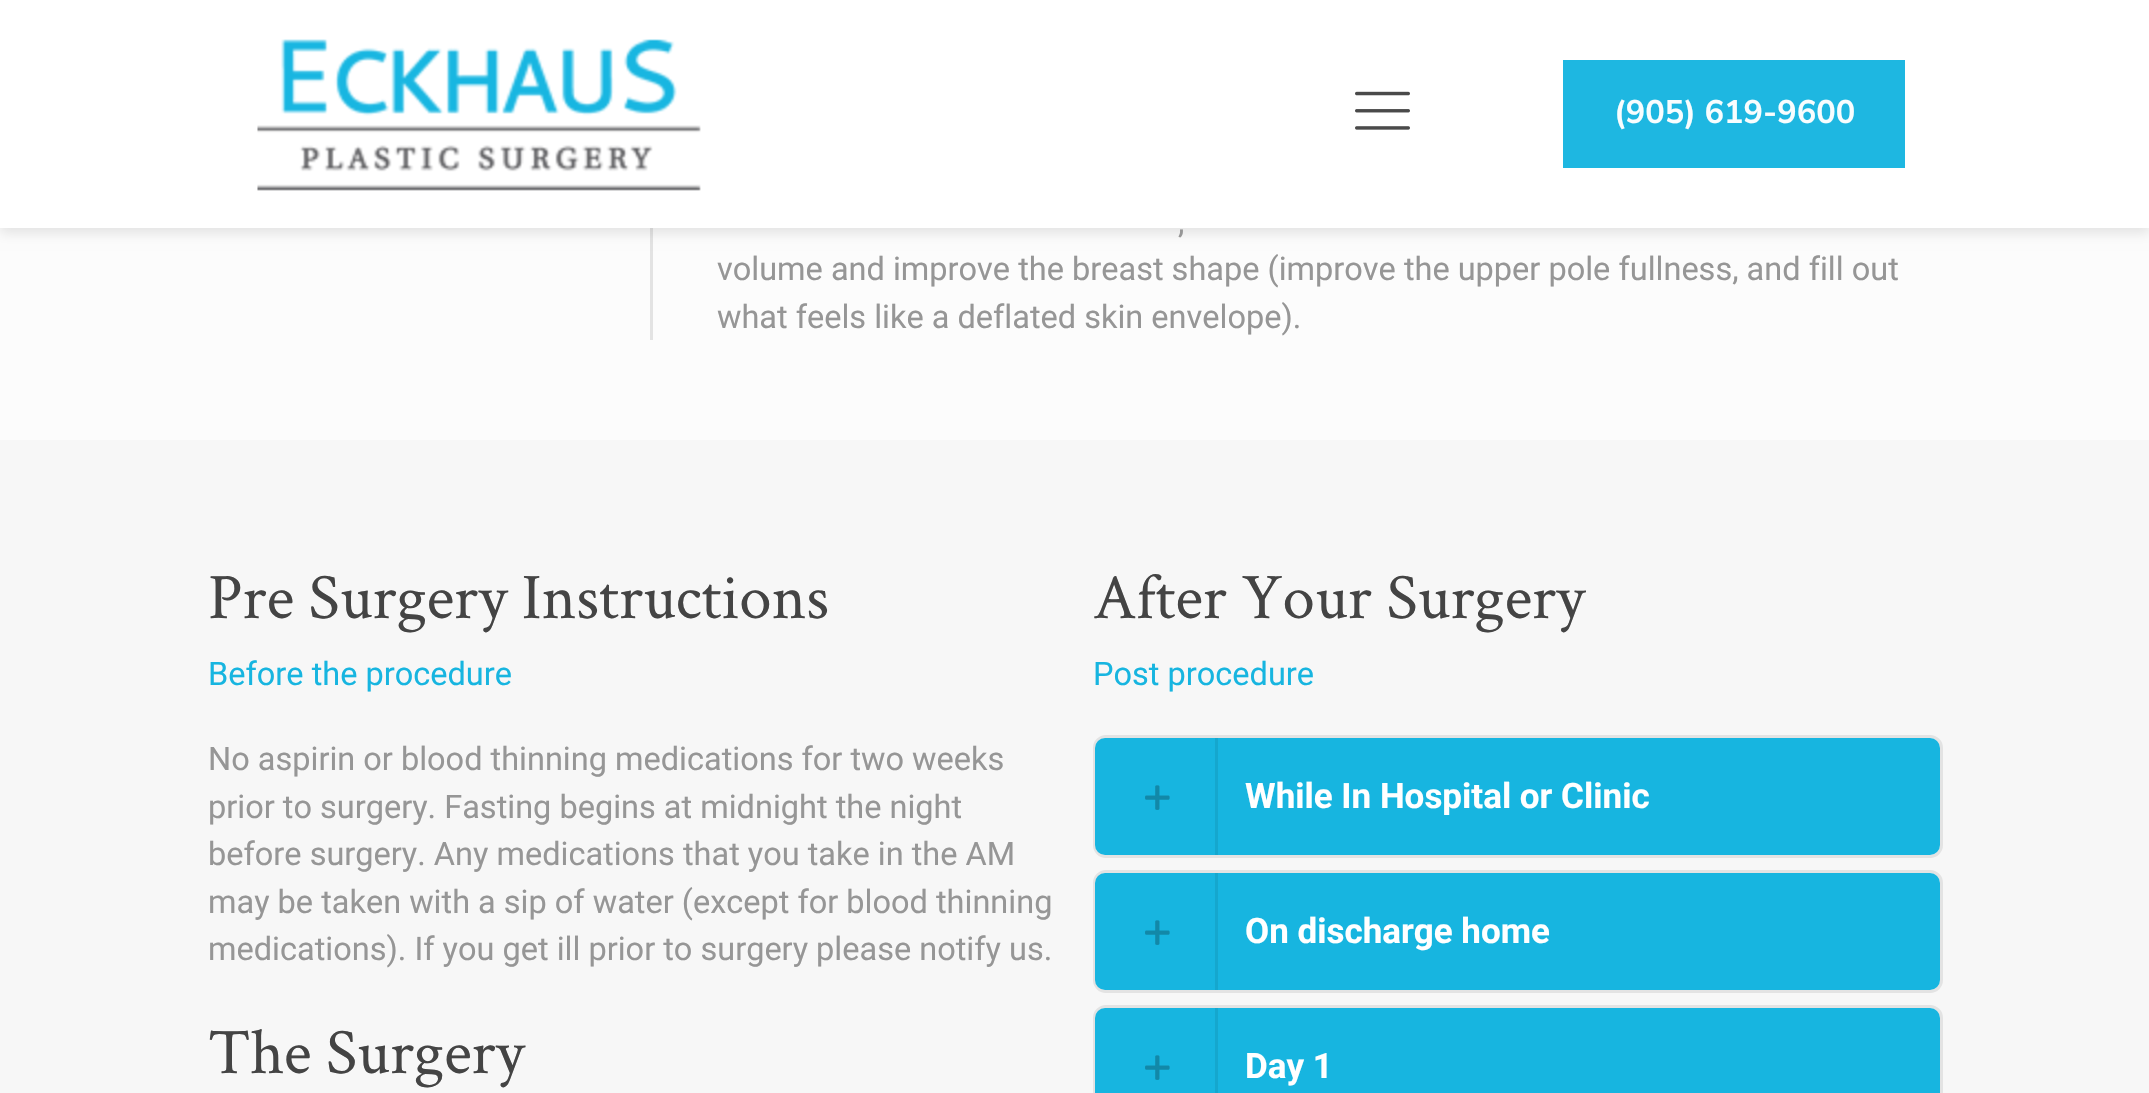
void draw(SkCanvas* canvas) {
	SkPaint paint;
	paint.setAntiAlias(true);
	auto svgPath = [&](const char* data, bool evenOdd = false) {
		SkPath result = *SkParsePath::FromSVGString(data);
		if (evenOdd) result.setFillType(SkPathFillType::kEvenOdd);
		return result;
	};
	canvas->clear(0xfffcfcfc);
	paint.setColor(0xffe3e3e3);
	canvas->drawRect(SkRect::MakeXYWH(650, 0, 3, 340), paint);
	canvas->save();
	canvas->clipPath(svgPath("M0 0H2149V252H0ZM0 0H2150V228H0Z", true), true);
	paint.setColor(0x1a000000);
	paint.setMaskFilter(SkMaskFilter::MakeBlur(kNormal_SkBlurStyle, 6));
	canvas->drawRect(SkRect::MakeXYWH(0, 5, 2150, 228), paint);
	paint.setMaskFilter(nullptr);
	canvas->restore();
	paint.setColor(0xf7ffffff);
	canvas->drawRect(SkRect::MakeXYWH(0, 0, 2149, 228), paint);
	canvas->drawImageRect(SkImages::DeferredFromEncodedData(SkData::MakeFromFileName("img1.png")), SkRect::MakeXYWH(257, 39, 444, 152), SkSamplingOptions());
	canvas->drawImageRect(SkImages::DeferredFromEncodedData(SkData::MakeFromFileName("img2.png")), SkRect::MakeXYWH(1355, 91, 55, 39), SkSamplingOptions());
	paint.setColor(0xf717b5e0);
	canvas->drawRect(SkRect::MakeXYWH(1563, 60, 342, 108), paint);
	SkFont f1(fontMgr->matchFamilyStyle("Nunito Sans", SkFontStyle::Bold()), 32.5);
	f1.setSubpixel(true);
	paint.setColor(0xfff8fdfe);
	canvas->drawString("(905) 619-9600", 1614, 123, f1, paint);
	SkFont f2(fontMgr->matchFamilyStyle("Roboto", SkFontStyle::Normal()), 32.5);
	f2.setSubpixel(true);
	paint.setColor(0xff969696);
	canvas->drawString(",", 1178, 233, f2, paint);
	canvas->drawString("volume and improve the breast shape (improve the upper pole fullness, and fill out", 717, 280, f2, paint);
	canvas->drawString("what feels like a deflated skin envelope).", 717, 328, f2, paint);
	paint.setColor(0xfff7f7f7);
	canvas->drawRect(SkRect::MakeXYWH(0, 440, 2149, 653), paint);
	SkFont f3(fontMgr->matchFamilyStyle("Crimson Text", SkFontStyle::Normal()), 65);
	f3.setSubpixel(true);
	paint.setColor(0xff444444);
	canvas->drawString("Pre Surgery Instructions", 208, 618, f3, paint);
	paint.setColor(0xff17b5e0);
	canvas->drawString("Before the procedure", 208, 685, f2, paint);
	paint.setColor(0xff969696);
	canvas->drawString("No aspirin or blood thinning medications for two weeks", 208, 770, f2, paint);
	canvas->drawString("prior to surgery. Fasting begins at midnight the night", 208, 818, f2, paint);
	canvas->drawString("before surgery. Any medications that you take in the AM", 208, 865, f2, paint);
	canvas->drawString("may be taken with a sip of water (except for blood thinning", 208, 913, f2, paint);
	canvas->drawString("medications). If you get ill prior to surgery please notify us.", 208, 960, f2, paint);
	paint.setColor(0xff444444);
	canvas->drawString("The Surgery", 208, 1073, f3, paint);
	canvas->drawString("After Your Surgery", 1093, 618, f3, paint);
	paint.setColor(0xff17b5e0);
	canvas->drawString("Post procedure", 1093, 685, f2, paint);
	paint.setStroke(true);
	paint.setStrokeWidth(3);
	paint.setColor(0xffe3e3e3);
	canvas->drawRoundRect(SkRect::MakeXYWH(1094.5, 736.5, 847, 120), 11.5, 11.5, paint);
	paint.setStroke(false);
	paint.setColor(0xff17b5e0);
	canvas->drawRoundRect(SkRect::MakeXYWH(1095, 738, 845, 117), 10, 10, paint);
	canvas->drawImageRect(SkImages::DeferredFromEncodedData(SkData::MakeFromFileName("img3.png")), SkRect::MakeXYWH(1145, 785, 25, 25), SkSamplingOptions());
	paint.setColor(0xff15a7ce);
	canvas->drawRect(SkRect::MakeXYWH(1215, 738, 3, 117), paint);
	SkFont f4(fontMgr->matchFamilyStyle("Roboto", SkFontStyle::Bold()), 35);
	f4.setSubpixel(true);
	paint.setColor(0xffffffff);
	canvas->drawString("While In Hospital or Clinic", 1245, 808, f4, paint);
	paint.setStroke(true);
	paint.setColor(0xffe3e3e3);
	canvas->drawRoundRect(SkRect::MakeXYWH(1094.5, 871.5, 847, 120), 11.5, 11.5, paint);
	paint.setStroke(false);
	paint.setColor(0xff17b5e0);
	canvas->drawRoundRect(SkRect::MakeXYWH(1095, 873, 845, 117), 10, 10, paint);
	canvas->drawImageRect(SkImages::DeferredFromEncodedData(SkData::MakeFromFileName("img3.png")), SkRect::MakeXYWH(1145, 920, 25, 25), SkSamplingOptions());
	paint.setColor(0xff15a7ce);
	canvas->drawRect(SkRect::MakeXYWH(1215, 873, 3, 117), paint);
	paint.setColor(0xffffffff);
	canvas->drawString("On discharge home", 1245, 943, f4, paint);
	paint.setStroke(true);
	paint.setColor(0xffe3e3e3);
	canvas->drawRoundRect(SkRect::MakeXYWH(1094.5, 1006.5, 847, 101), 11.5, 11.5, paint);
	paint.setStroke(false);
	paint.setColor(0xff17b5e0);
	canvas->drawRoundRect(SkRect::MakeXYWH(1095, 1008, 845, 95), 10, 10, paint);
	canvas->drawImageRect(SkImages::DeferredFromEncodedData(SkData::MakeFromFileName("img3.png")), SkRect::MakeXYWH(1145, 1055, 25, 25), SkSamplingOptions());
	paint.setColor(0xff15a7ce);
	canvas->drawRect(SkRect::MakeXYWH(1215, 1008, 3, 85), paint);
	paint.setColor(0xffffffff);
	canvas->drawString("Day 1", 1245, 1078, f4, paint);
}
